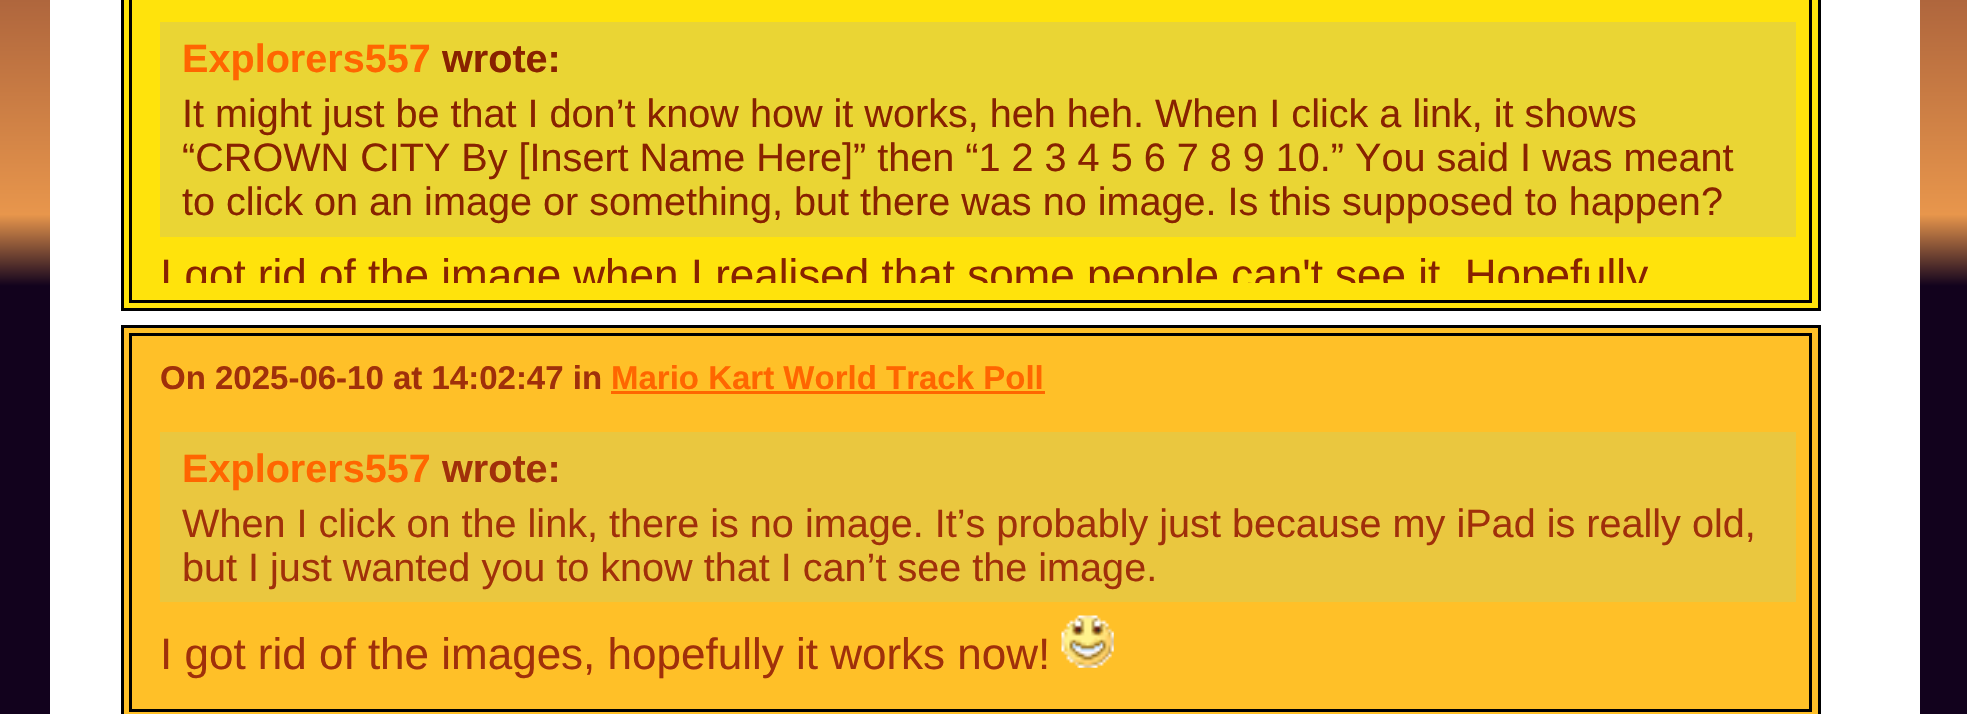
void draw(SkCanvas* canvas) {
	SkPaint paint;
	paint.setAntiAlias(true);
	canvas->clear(0xffffffff);
	{
		const SkColor colors[] = {0xff12021d, 0xff12021d, 0xffe8964c, 0xffaf663d};
		const float stops[] = {0, 0.6, 0.7, 1};
		const SkPoint ends[] = {{985, 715}, {985, 0}};
		paint.setShader(SkGradientShader::MakeLinear(ends, colors, stops, 4, SkTileMode::kClamp));
		paint.setAlpha(255);
	}
	canvas->drawRect(SkRect::MakeXYWH(0, 0, 1967, 714), paint);
	paint.setShader(nullptr);
	paint.setColor(0xffffffff);
	canvas->drawRect(SkRect::MakeXYWH(50, 0, 1870, 714), paint);
	paint.setColor(0xffffe30c);
	canvas->drawRect(SkRect::MakeXYWH(122.5, -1.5, 1697, 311), paint);
	paint.setStroke(true);
	paint.setStrokeWidth(3);
	paint.setColor(0xff000000);
	canvas->drawRect(SkRect::MakeXYWH(122.5, -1.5, 1697, 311), paint);
	canvas->drawRect(SkRect::MakeXYWH(130.5, -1.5, 1680, 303), paint);
	paint.setStroke(false);
	paint.setColor(0xffead534);
	canvas->drawRect(SkRect::MakeXYWH(160, 22, 1636, 215), paint);
	SkFont f1(fontMgr->matchFamilyStyle("Liberation Sans", SkFontStyle::Bold()), 39.6);
	f1.setSubpixel(true);
	paint.setColor(0xffff6600);
	canvas->drawString("Explorers557", 182, 72, f1, paint);
	paint.setColor(0xff882200);
	canvas->drawString("wrote:", 442, 72, f1, paint);
	SkFont f2(fontMgr->matchFamilyStyle("Liberation Sans", SkFontStyle::Normal()), 39.6);
	f2.setSubpixel(true);
	canvas->drawString("It might just be that I don’t know how it works, heh heh. When I click a link, it shows", 182, 127, f2, paint);
	canvas->drawString("“CROWN CITY By [Insert Name Here]” then “1 2 3 4 5 6 7 8 9 10.” You said I was meant", 182, 171, f2, paint);
	canvas->drawString("to click on an image or something, but there was no image. Is this supposed to happen?", 182, 215, f2, paint);
	canvas->save();
	canvas->clipRect(SkRect::MakeXYWH(160, 8, 1650, 275));
	SkFont f3(fontMgr->matchFamilyStyle("Liberation Sans", SkFontStyle::Normal()), 44);
	f3.setSubpixel(true);
	canvas->drawString("I got rid of the image when I realised that some people can't see it. Hopefully", 160, 290, f3, paint);
	canvas->restore();
	paint.setColor(0xffffc028);
	canvas->drawRect(SkRect::MakeXYWH(122.5, 326.5, 1697, 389), paint);
	paint.setStroke(true);
	paint.setColor(0xff000000);
	canvas->drawRect(SkRect::MakeXYWH(122.5, 326.5, 1697, 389), paint);
	canvas->drawRect(SkRect::MakeXYWH(130.5, 334.5, 1680, 376), paint);
	SkFont f4(fontMgr->matchFamilyStyle("Liberation Sans", SkFontStyle::Bold()), 33);
	f4.setSubpixel(true);
	paint.setStroke(false);
	paint.setColor(0xffa0300a);
	canvas->drawString("On 2025-06-10 at 14:02:47 in", 160, 389, f4, paint);
	paint.setColor(0xffff6600);
	canvas->drawString("Mario Kart World Track Poll", 611, 389, f4, paint);
	canvas->drawRect(SkRect::MakeXYWH(611, 391, 434, 3), paint);
	paint.setColor(0xffeac73f);
	canvas->drawRect(SkRect::MakeXYWH(160, 432, 1636, 170), paint);
	paint.setColor(0xffff6600);
	canvas->drawString("Explorers557", 182, 482, f1, paint);
	paint.setColor(0xffa0300a);
	canvas->drawString("wrote:", 442, 482, f1, paint);
	canvas->drawString("When I click on the link, there is no image. It’s probably just because my iPad is really old,", 182, 537, f2, paint);
	canvas->drawString("but I just wanted you to know that I can’t see the image.", 182, 581, f2, paint);
	canvas->drawString("I got rid of the images, hopefully it works now!", 160, 669, f3, paint);
	canvas->drawImageRect(SkImages::DeferredFromEncodedData(SkData::MakeFromFileName("img1.png")), SkRect::MakeXYWH(1061, 615, 53, 53), SkSamplingOptions());
}
